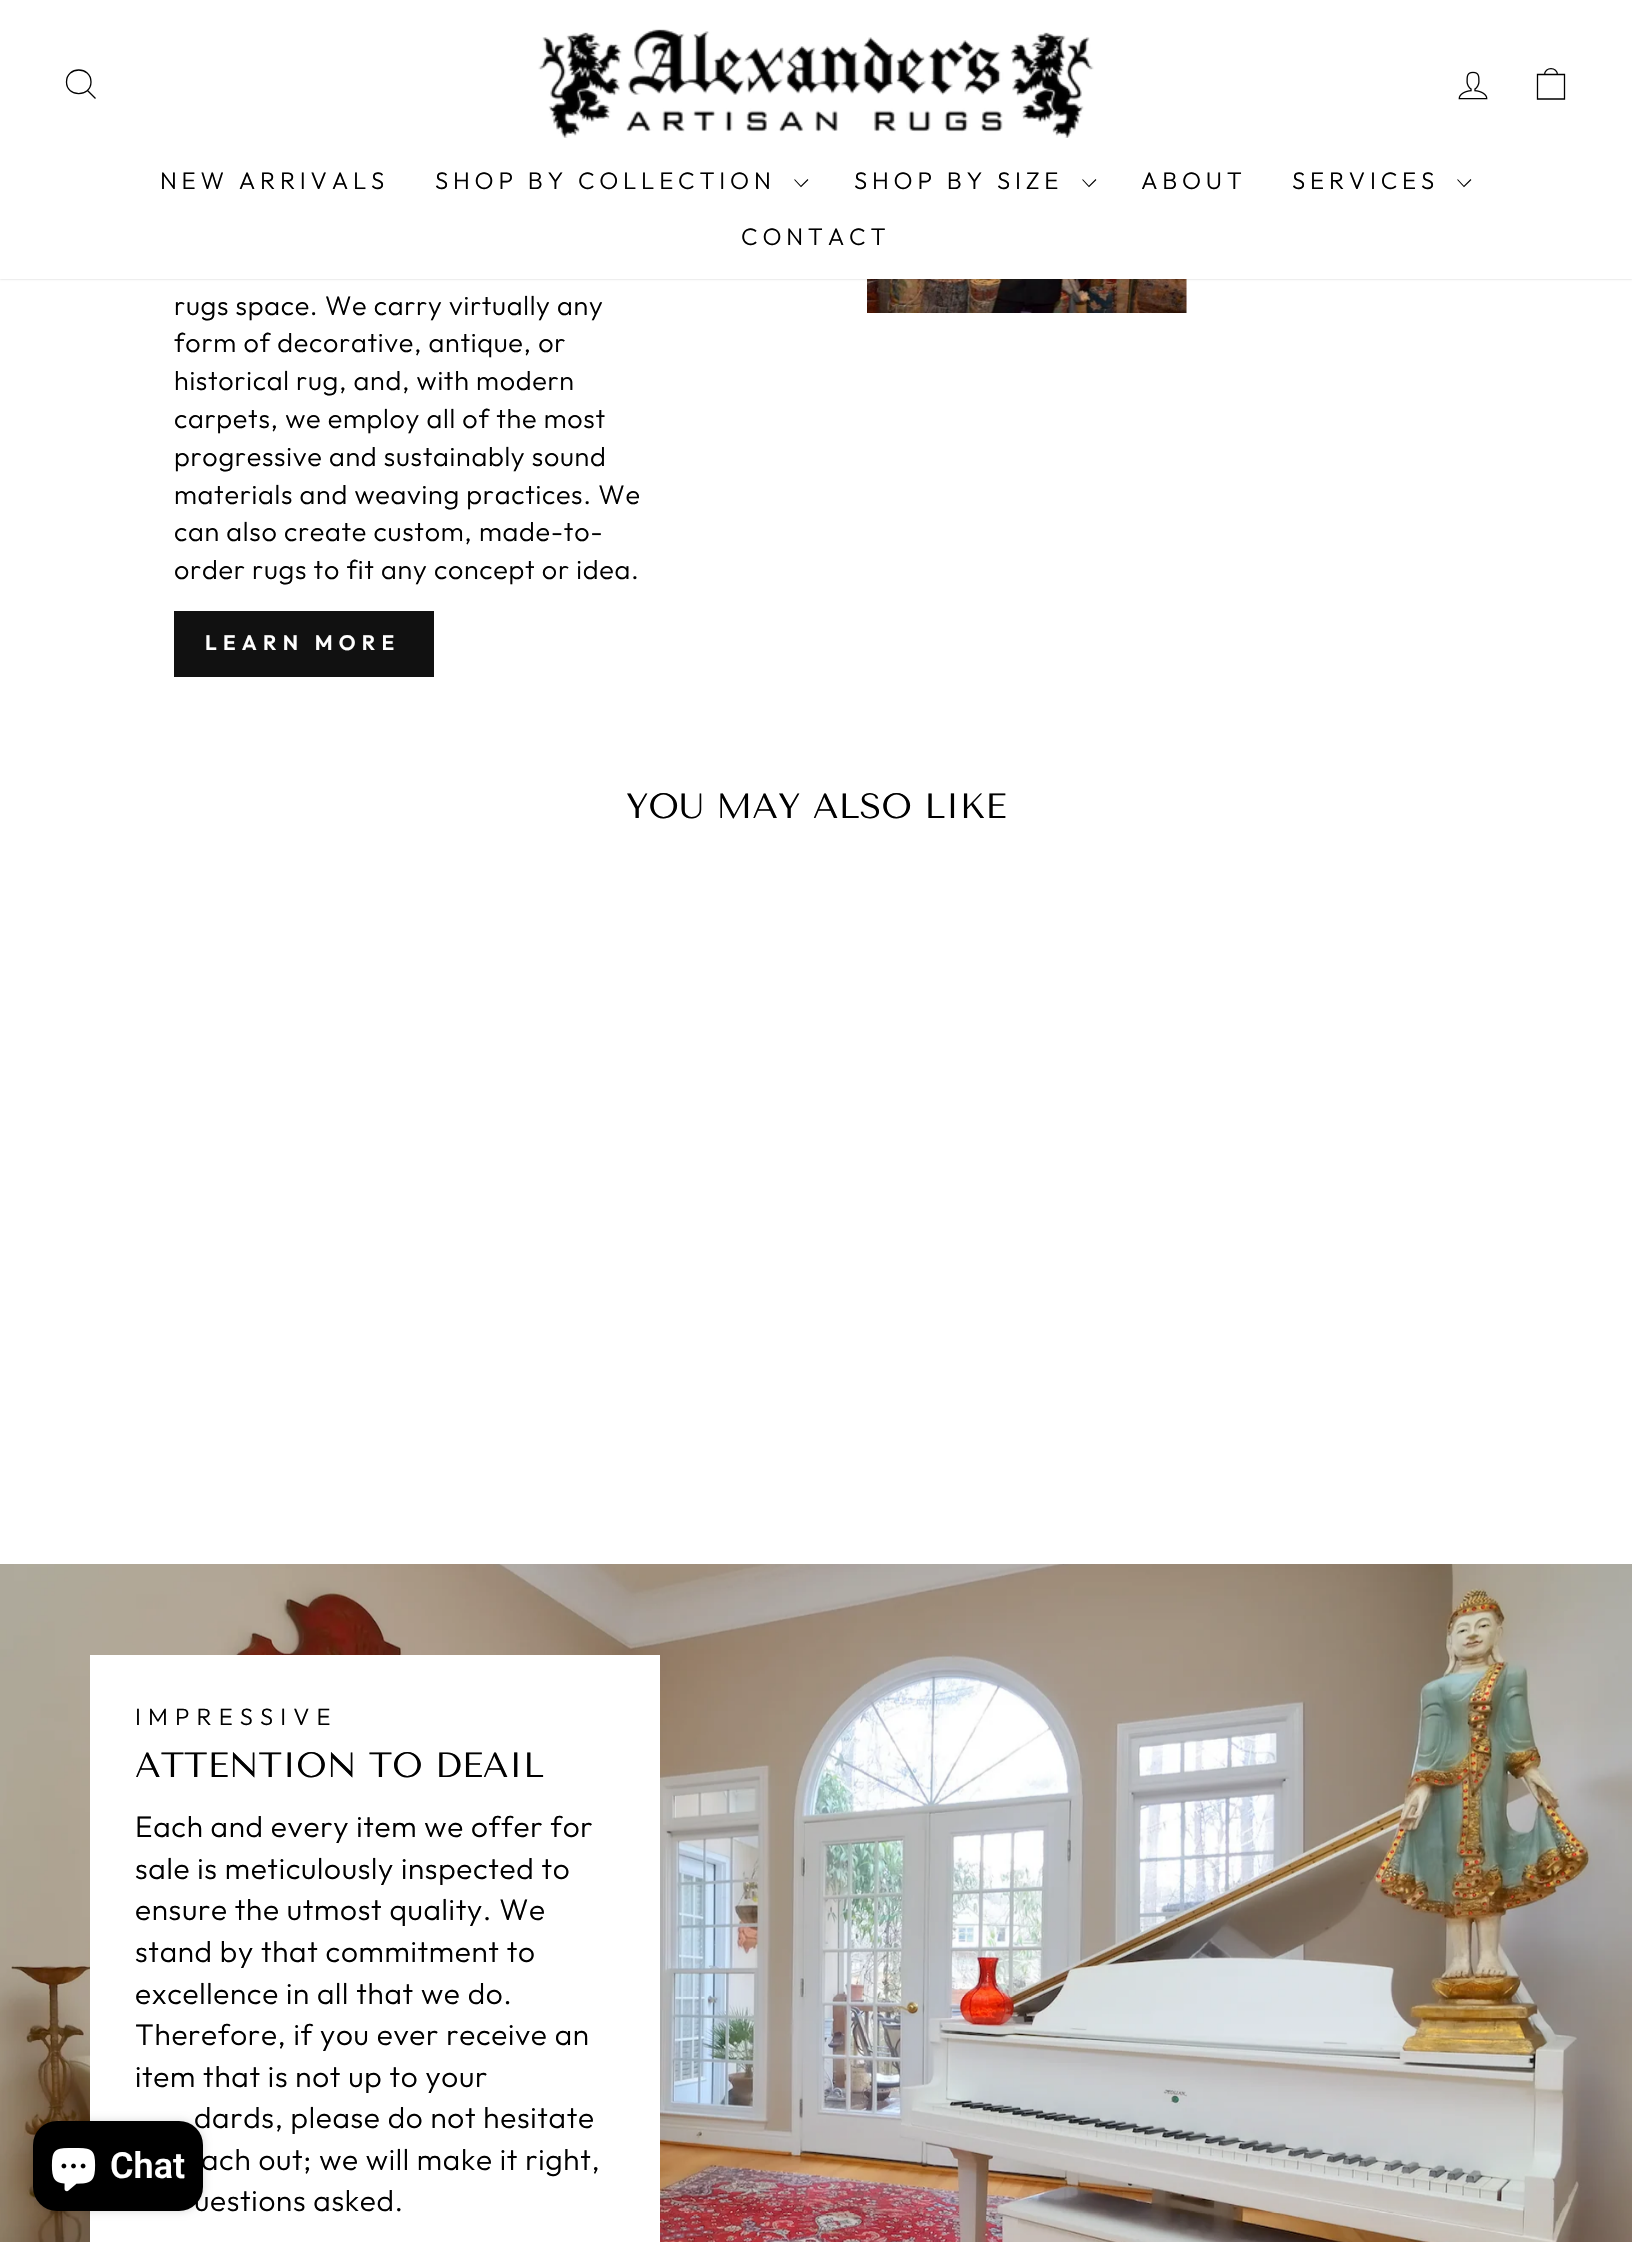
void draw(SkCanvas* canvas) {
	SkPaint paint;
	paint.setAntiAlias(true);
	auto spacedText = [&](const char* s, float x, float y, const SkFont& font, const SkPaint& ink, float letter, float word) {
		std::vector<SkGlyphID> glyphs(font.countText(s, strlen(s), SkTextEncoding::kUTF8));
		std::vector<float> xs(glyphs.size());
		font.textToGlyphs(s, strlen(s), SkTextEncoding::kUTF8, glyphs);
		font.getXPos(glyphs, xs, x);
		float extra = 0;
		for (size_t i = 0; i < glyphs.size(); i++) {
			xs[i] += extra;
			extra += letter + word * (glyphs[i] == font.unicharToGlyph(' '));
		}
		canvas->drawTextBlob(SkTextBlob::MakeFromPosHGlyphs(glyphs, xs, y, font), 0, 0, ink);
	};
	auto svgPath = [&](const char* data, bool evenOdd = false) {
		SkPath result = *SkParsePath::FromSVGString(data);
		if (evenOdd) result.setFillType(SkPathFillType::kEvenOdd);
		return result;
	};
	canvas->clear(0xffffffff);
	canvas->drawImageRect(SkImages::DeferredFromEncodedData(SkData::MakeFromFileName("img3.png")), SkRect::MakeXYWH(867, 279, 320, 34), SkSamplingOptions());
	paint.setColor(0x33000000);
	paint.setMaskFilter(SkMaskFilter::MakeBlur(kNormal_SkBlurStyle, 1));
	canvas->drawRect(SkRect::MakeXYWH(0, 0, 1632, 279), paint);
	paint.setMaskFilter(nullptr);
	paint.setColor(0xffffffff);
	canvas->drawRect(SkRect::MakeXYWH(0, 0, 1632, 279), paint);
	paint.setStroke(true);
	paint.setStrokeWidth(1.3);
	paint.setColor(0xff000000);
	canvas->drawPath(svgPath("M91 82C91 97.5 66.5 97.5 66.5 82C66.5 66 91 66 91 82ZM95.5 98.5L87.5 90.5"), paint);
	canvas->drawImageRect(SkImages::DeferredFromEncodedData(SkData::MakeFromFileName("img1.png")), SkRect::MakeXYWH(538, 29, 556, 109), SkSamplingOptions());
	canvas->drawImageRect(SkImages::DeferredFromEncodedData(SkData::MakeFromFileName("img2.png")), SkRect::MakeXYWH(1458, 71, 30, 29), SkSamplingOptions());
	canvas->drawPath(svgPath("M1537.5 74.5H1564.5V99H1537.5ZM1544.5 75C1544.5 66.5 1557.5 66.5 1557.5 75"), paint);
	SkFont f1(fontMgr->matchFamilyStyle("Outfit", SkFontStyle(300, SkFontStyle::kNormal_Width, SkFontStyle::kUpright_Slant)), 24);
	f1.setSubpixel(true);
	paint.setStroke(false);
	spacedText("NEW ARRIVALS", 160, 189, f1, paint, 4.75, 0);
	spacedText("SHOP BY COLLECTION", 435, 189, f1, paint, 4.75, 0);
	paint.setStroke(true);
	paint.setStrokeWidth(1.1);
	canvas->drawPath(svgPath("M794.5 179.5L801 186.5L808 179.5"), paint);
	paint.setStroke(false);
	spacedText("SHOP BY SIZE", 854, 189, f1, paint, 4.75, 0);
	paint.setStroke(true);
	canvas->drawPath(svgPath("M1082.5 179.5L1089 186.5L1096 179.5"), paint);
	paint.setStroke(false);
	spacedText("ABOUT", 1141, 189, f1, paint, 4.75, 0);
	spacedText("SERVICES", 1292, 189, f1, paint, 4.75, 0);
	paint.setStroke(true);
	canvas->drawPath(svgPath("M1457.5 179.5L1464 186.5L1471 179.5"), paint);
	paint.setStroke(false);
	spacedText("CONTACT", 741, 245, f1, paint, 4.75, 0);
	SkFont f2(fontMgr->matchFamilyStyle("Outfit", SkFontStyle(300, SkFontStyle::kNormal_Width, SkFontStyle::kUpright_Slant)), 27);
	f2.setSubpixel(true);
	spacedText("rugs space. We carry virtually any", 174, 315, f2, paint, 0.7, 0);
	spacedText("form of decorative, antique, or", 174, 352, f2, paint, 0.7, 0);
	spacedText("historical rug, and, with modern", 174, 390, f2, paint, 0.7, 0);
	spacedText("carpets, we employ all of the most", 174, 428, f2, paint, 0.7, 0);
	spacedText("progressive and sustainably sound", 174, 466, f2, paint, 0.7, 0);
	spacedText("materials and weaving practices. We", 174, 504, f2, paint, 0.7, 0);
	spacedText("can also create custom, made-to-", 174, 541, f2, paint, 0.7, 0);
	spacedText("order rugs to fit any concept or idea.", 174, 579, f2, paint, 0.7, 0);
	paint.setColor(0xff111111);
	canvas->drawRect(SkRect::MakeXYWH(174, 611, 260, 66), paint);
	SkFont f3(fontMgr->matchFamilyStyle("Outfit", SkFontStyle(600, SkFontStyle::kNormal_Width, SkFontStyle::kUpright_Slant)), 21);
	f3.setSubpixel(true);
	paint.setColor(0xffffffff);
	spacedText("LEARN MORE", 205, 650, f3, paint, 6.25, 0);
	SkFont f4(fontMgr->matchFamilyStyle("Tenor Sans", SkFontStyle::Normal()), 35.1);
	f4.setSubpixel(true);
	paint.setColor(0xff000000);
	canvas->drawString("YOU MAY ALSO LIKE", 626, 818, f4, paint);
	canvas->drawImageRect(SkImages::DeferredFromEncodedData(SkData::MakeFromFileName("img4.png")), SkRect::MakeXYWH(0, 1564, 1632, 678), SkSamplingOptions());
	paint.setColor(0xffffffff);
	canvas->drawRect(SkRect::MakeXYWH(90, 1655, 570, 587), paint);
	SkFont f5(fontMgr->matchFamilyStyle("Outfit", SkFontStyle(300, SkFontStyle::kNormal_Width, SkFontStyle::kUpright_Slant)), 23.75);
	f5.setSubpixel(true);
	paint.setColor(0xff000000);
	spacedText("IMPRESSIVE", 135, 1725, f5, paint, 7.1, 0);
	canvas->drawString("ATTENTION TO DEAIL", 135, 1777, f4, paint);
	SkFont f6(fontMgr->matchFamilyStyle("Outfit", SkFontStyle(300, SkFontStyle::kNormal_Width, SkFontStyle::kUpright_Slant)), 29.75);
	f6.setSubpixel(true);
	spacedText("Each and every item we offer for", 135, 1837, f6, paint, 0.7, 0);
	spacedText("sale is meticulously inspected to", 135, 1879, f6, paint, 0.7, 0);
	spacedText("ensure the utmost quality. We", 135, 1920, f6, paint, 0.7, 0);
	spacedText("stand by that commitment to", 135, 1962, f6, paint, 0.7, 0);
	spacedText("excellence in all that we do.", 135, 2004, f6, paint, 0.7, 0);
	spacedText("Therefore, if you ever receive an", 135, 2045, f6, paint, 0.7, 0);
	spacedText("item that is not up to your", 135, 2087, f6, paint, 0.7, 0);
	spacedText("dards, please do not hesitate", 194, 2128, f6, paint, 0.7, 0);
	spacedText("ach out; we will make it right,", 201, 2170, f6, paint, 0.7, 0);
	spacedText("uestions asked.", 194, 2211, f6, paint, 0.7, 0);
	paint.setColor(0x26000000);
	paint.setMaskFilter(SkMaskFilter::MakeBlur(kNormal_SkBlurStyle, 4));
	canvas->drawRoundRect(SkRect::MakeXYWH(33, 2121, 170, 90), 24, 24, paint);
	paint.setMaskFilter(nullptr);
	paint.setColor(0xff000000);
	canvas->drawRoundRect(SkRect::MakeXYWH(33, 2121, 170, 90), 24, 24, paint);
	canvas->drawImageRect(SkImages::DeferredFromEncodedData(SkData::MakeFromFileName("img5.png")), SkRect::MakeXYWH(51, 2148, 45, 44), SkSamplingOptions());
	SkFont f7(fontMgr->matchFamilyStyle("Roboto", SkFontStyle(600, SkFontStyle::kNormal_Width, SkFontStyle::kUpright_Slant)), 36);
	f7.setSubpixel(true);
	paint.setColor(0xffffffff);
	canvas->drawString("Chat", 110, 2178, f7, paint);
}
